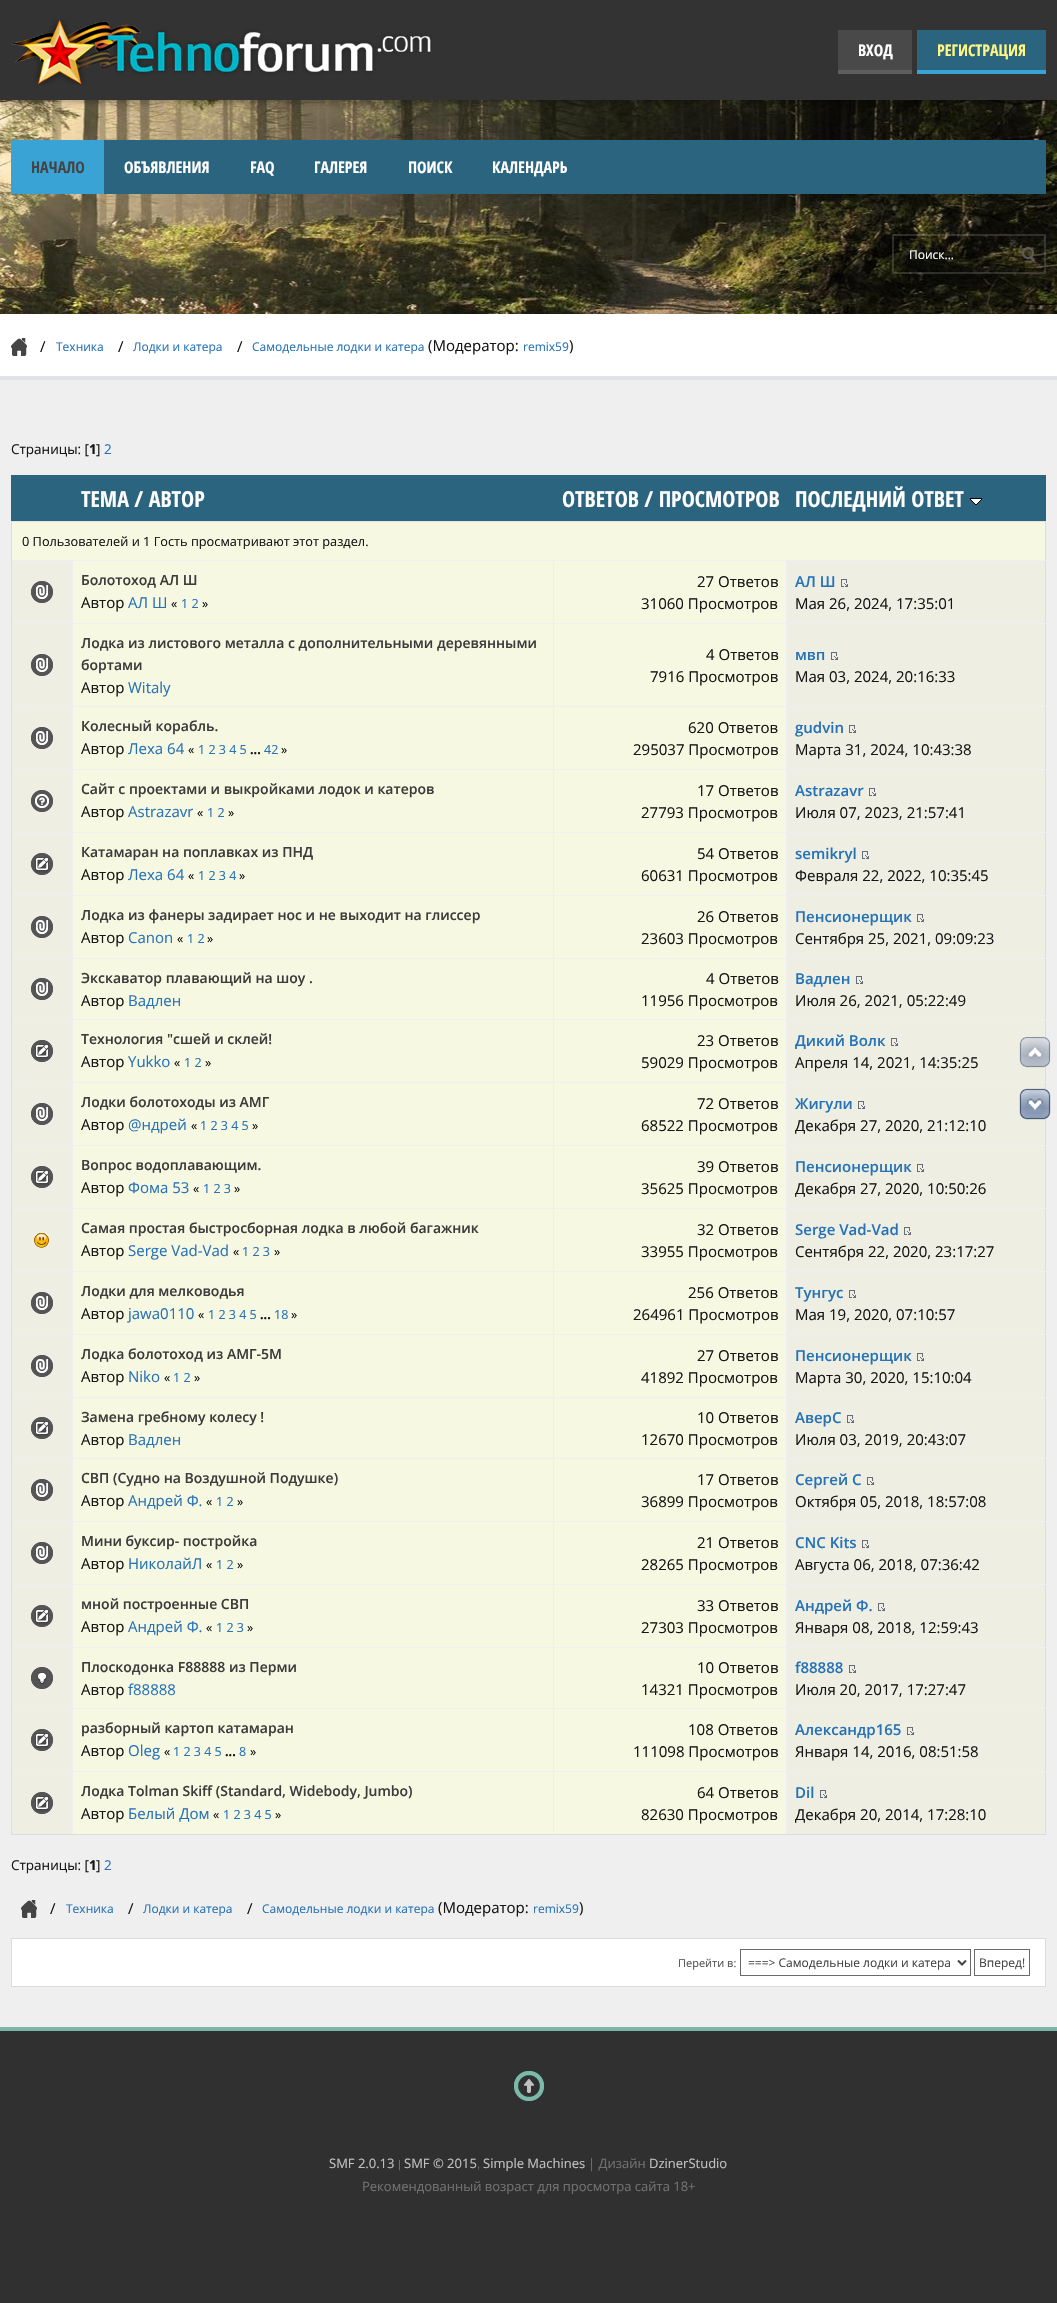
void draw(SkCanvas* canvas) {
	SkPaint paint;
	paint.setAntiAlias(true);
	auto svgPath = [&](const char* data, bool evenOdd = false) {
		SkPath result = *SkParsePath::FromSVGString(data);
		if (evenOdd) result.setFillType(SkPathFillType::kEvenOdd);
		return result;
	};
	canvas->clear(0xff303030);
	canvas->drawImageRect(SkImages::DeferredFromEncodedData(SkData::MakeFromFileName("img1.png")), SkRect::MakeXYWH(0, 100, 1057, 214), SkSamplingOptions());
	paint.setColor(0x80000000);
	paint.setMaskFilter(SkMaskFilter::MakeBlur(kNormal_SkBlurStyle, 5));
	canvas->drawRect(SkRect::MakeXYWH(0, 0, 1057, 100), paint);
	paint.setMaskFilter(nullptr);
	paint.setColor(0xff333333);
	canvas->drawRect(SkRect::MakeXYWH(0, 0, 1057, 100), paint);
	canvas->drawImageRect(SkImages::DeferredFromEncodedData(SkData::MakeFromFileName("img2.png")), SkRect::MakeXYWH(11, 19, 421, 66), SkSamplingOptions());
	paint.setColor(0xff494949);
	canvas->drawRect(SkRect::MakeXYWH(838, 30, 74, 40), paint);
	paint.setColor(0xff5e5e5e);
	canvas->drawRect(SkRect::MakeXYWH(838, 70, 74, 4), paint);
	SkFont f1(fontMgr->matchFamilyStyle("Open Sans Condensed", SkFontStyle::Bold()), 16);
	f1.setSubpixel(true);
	paint.setColor(0xffffffff);
	canvas->drawString("ВХОД", 858, 56, f1, paint);
	paint.setColor(0xff2a647f);
	canvas->drawRect(SkRect::MakeXYWH(917, 30, 129, 40), paint);
	paint.setColor(0xff39a3d5);
	canvas->drawRect(SkRect::MakeXYWH(917, 70, 129, 4), paint);
	paint.setColor(0xfffff581);
	canvas->drawString("РЕГИСТРАЦИЯ", 937, 56, f1, paint);
	paint.setColor(0xff2a647f);
	canvas->drawRect(SkRect::MakeXYWH(104, 140, 942, 54), paint);
	paint.setColor(0xff39a3d5);
	canvas->drawRect(SkRect::MakeXYWH(11, 140, 93, 54), paint);
	paint.setColor(0xff444444);
	canvas->drawString("НАЧАЛО", 31, 173, f1, paint);
	paint.setColor(0xffffffff);
	canvas->drawString("ОБЪЯВЛЕНИЯ", 124, 173, f1, paint);
	canvas->drawString("FAQ", 250, 173, f1, paint);
	canvas->drawString("ГАЛЕРЕЯ", 314, 173, f1, paint);
	canvas->drawString("ПОИСК", 408, 173, f1, paint);
	canvas->drawString("КАЛЕНДАРЬ", 492, 173, f1, paint);
	paint.setStroke(true);
	paint.setStrokeWidth(2);
	paint.setColor(0x26ffffff);
	canvas->drawRect(SkRect::MakeXYWH(893, 235, 152, 38), paint);
	SkFont f2(fontMgr->matchFamilyStyle("Open Sans", SkFontStyle::Normal()), 12);
	f2.setSubpixel(true);
	paint.setStroke(false);
	paint.setColor(0xffffffff);
	canvas->drawString("Поиск...", 909, 259, f2, paint);
	canvas->drawImageRect(SkImages::DeferredFromEncodedData(SkData::MakeFromFileName("img3.png")), SkRect::MakeXYWH(1022, 247, 14, 16), SkSamplingOptions());
	canvas->drawRect(SkRect::MakeXYWH(0, 314, 1057, 62), paint);
	paint.setColor(0xffe0e2e8);
	canvas->drawRect(SkRect::MakeXYWH(0, 376, 1057, 4), paint);
	canvas->drawImageRect(SkImages::DeferredFromEncodedData(SkData::MakeFromFileName("img4.png")), SkRect::MakeXYWH(11, 338, 16, 18), SkSamplingOptions());
	SkFont f3(fontMgr->matchFamilyStyle("Open Sans", SkFontStyle::Normal()), 15);
	f3.setSubpixel(true);
	paint.setColor(0xff161616);
	canvas->drawString("/", 40, 352, f3, paint);
	paint.setColor(0xff2672b7);
	canvas->drawString("Техника", 56, 351, f2, paint);
	paint.setColor(0xff161616);
	canvas->drawString("/", 118, 352, f3, paint);
	paint.setColor(0xff2672b7);
	canvas->drawString("Лодки и катера", 133, 351, f2, paint);
	paint.setColor(0xff161616);
	canvas->drawString("/", 237, 352, f3, paint);
	paint.setColor(0xff2672b7);
	canvas->drawString("Самодельные лодки и катера", 252, 351, f2, paint);
	paint.setColor(0xff161616);
	canvas->drawString("(Модератор:", 428, 351, f3, paint);
	paint.setColor(0xff2672b7);
	canvas->drawString("remix59", 523, 351, f2, paint);
	paint.setColor(0xff161616);
	canvas->drawString(")", 569, 351, f3, paint);
	paint.setColor(0xffefefef);
	canvas->drawRect(SkRect::MakeXYWH(0, 380, 1057, 1647), paint);
	SkFont f4(fontMgr->matchFamilyStyle("Open Sans", SkFontStyle::Normal()), 13.5);
	f4.setSubpixel(true);
	paint.setColor(0xff161616);
	canvas->drawString("Страницы: [", 11, 454, f4, paint);
	SkFont f5(fontMgr->matchFamilyStyle("Open Sans", SkFontStyle::Bold()), 13.5);
	f5.setSubpixel(true);
	canvas->drawString("1", 89, 454, f5, paint);
	canvas->drawString("]", 96, 454, f4, paint);
	paint.setColor(0xff2672b7);
	canvas->drawString("2", 104, 454, f4, paint);
	paint.setColor(0xff2a647f);
	canvas->drawRect(SkRect::MakeXYWH(11, 475, 1035, 46), paint);
	paint.setColor(0xffe0e2e8);
	canvas->drawRect(SkRect::MakeXYWH(11, 521, 1035, 1), paint);
	SkFont f6(fontMgr->matchFamilyStyle("Open Sans Condensed", SkFontStyle::Bold()), 22);
	f6.setSubpixel(true);
	paint.setColor(0xffffffff);
	canvas->drawString("ТЕМА / АВТОР", 81, 507, f6, paint);
	canvas->drawString("ОТВЕТОВ / ПРОСМОТРОВ", 562, 507, f6, paint);
	canvas->drawString("ПОСЛЕДНИЙ ОТВЕТ", 795, 507, f6, paint);
	canvas->drawImageRect(SkImages::DeferredFromEncodedData(SkData::MakeFromFileName("img5.png")), SkRect::MakeXYWH(970, 498, 12, 7), SkSamplingOptions());
	paint.setColor(0xfff7f8e2);
	canvas->drawRect(SkRect::MakeXYWH(12, 522, 1033, 38), paint);
	paint.setColor(0xffdadce2);
	canvas->drawRect(SkRect::MakeXYWH(1045, 522, 1, 1313), paint);
	paint.setColor(0xffedeff5);
	canvas->drawRect(SkRect::MakeXYWH(11, 560, 1035, 1), paint);
	paint.setColor(0xffdadce2);
	canvas->drawRect(SkRect::MakeXYWH(11, 522, 1, 39), paint);
	SkFont f7(fontMgr->matchFamilyStyle("Open Sans", SkFontStyle::Normal()), 12.75);
	f7.setSubpixel(true);
	paint.setColor(0xff161616);
	canvas->drawString("0 Пользователей и 1 Гость просматривают этот раздел.", 22, 546, f7, paint);
	paint.setColor(0xffeeefe2);
	canvas->drawRect(SkRect::MakeXYWH(12, 561, 60, 62), paint);
	paint.setColor(0xffedeff5);
	canvas->drawRect(SkRect::MakeXYWH(72, 561, 1, 1274), paint);
	canvas->drawRect(SkRect::MakeXYWH(11, 623, 62, 1), paint);
	paint.setColor(0xffdadce2);
	canvas->drawRect(SkRect::MakeXYWH(11, 561, 1, 63), paint);
	canvas->drawImageRect(SkImages::DeferredFromEncodedData(SkData::MakeFromFileName("img6.png")), SkRect::MakeXYWH(31, 581, 22, 22), SkSamplingOptions());
	paint.setColor(0xfff7f8e2);
	canvas->drawRect(SkRect::MakeXYWH(73, 561, 480, 62), paint);
	paint.setColor(0xffedeff5);
	canvas->drawRect(SkRect::MakeXYWH(553, 561, 1, 1274), paint);
	canvas->drawRect(SkRect::MakeXYWH(73, 623, 481, 1), paint);
	SkFont f8(fontMgr->matchFamilyStyle("Open Sans", SkFontStyle(600, SkFontStyle::kNormal_Width, SkFontStyle::kUpright_Slant)), 14);
	f8.setSubpixel(true);
	paint.setColor(0xff3c3c3c);
	canvas->drawString("Болотоход АЛ Ш", 81, 585, f8, paint);
	paint.setColor(0xff161616);
	canvas->drawString("Автор", 81, 608, f3, paint);
	paint.setColor(0xff2672b7);
	canvas->drawString("АЛ Ш", 128, 608, f3, paint);
	SkFont f9(fontMgr->matchFamilyStyle("Open Sans", SkFontStyle::Normal()), 12.5);
	f9.setSubpixel(true);
	paint.setColor(0xff161616);
	canvas->drawString("«", 171, 608, f9, paint);
	paint.setColor(0xff2672b7);
	canvas->drawString("1 2", 181, 608, f9, paint);
	paint.setColor(0xff161616);
	canvas->drawString("»", 202, 608, f9, paint);
	paint.setColor(0xfff7f8e2);
	canvas->drawRect(SkRect::MakeXYWH(554, 561, 232, 62), paint);
	paint.setColor(0xffedeff5);
	canvas->drawRect(SkRect::MakeXYWH(786, 561, 1, 1274), paint);
	canvas->drawRect(SkRect::MakeXYWH(554, 623, 492, 1), paint);
	paint.setColor(0xff161616);
	canvas->drawString("27 Ответов", 697, 587, f3, paint);
	canvas->drawString("31060 Просмотров", 641, 609, f3, paint);
	paint.setColor(0xffeeefe2);
	canvas->drawRect(SkRect::MakeXYWH(787, 561, 258, 62), paint);
	SkFont f10(fontMgr->matchFamilyStyle("Open Sans", SkFontStyle(600, SkFontStyle::kNormal_Width, SkFontStyle::kUpright_Slant)), 15);
	f10.setSubpixel(true);
	paint.setColor(0xff2672b7);
	canvas->drawString("АЛ Ш", 795, 587, f10, paint);
	canvas->drawImageRect(SkImages::DeferredFromEncodedData(SkData::MakeFromFileName("img7.png")), SkRect::MakeXYWH(841, 579, 7, 8), SkSamplingOptions());
	paint.setColor(0xff161616);
	canvas->drawString("Мая 26, 2024, 17:35:01", 795, 609, f3, paint);
	paint.setColor(0xffeeefe2);
	canvas->drawRect(SkRect::MakeXYWH(12, 624, 60, 82), paint);
	paint.setColor(0xffedeff5);
	canvas->drawRect(SkRect::MakeXYWH(11, 706, 1035, 1), paint);
	paint.setColor(0xffdadce2);
	canvas->drawRect(SkRect::MakeXYWH(11, 624, 1, 83), paint);
	canvas->drawImageRect(SkImages::DeferredFromEncodedData(SkData::MakeFromFileName("img6.png")), SkRect::MakeXYWH(31, 654, 22, 22), SkSamplingOptions());
	paint.setColor(0xfff7f8e2);
	canvas->drawRect(SkRect::MakeXYWH(73, 624, 480, 82), paint);
	paint.setColor(0xff3c3c3c);
	canvas->drawString("Лодка из листового металла с дополнительными деревянными", 81, 648, f8, paint);
	canvas->drawString("бортами", 81, 670, f8, paint);
	paint.setColor(0xff161616);
	canvas->drawString("Автор", 81, 693, f3, paint);
	paint.setColor(0xff2672b7);
	canvas->drawString("Witaly", 128, 693, f3, paint);
	paint.setColor(0xfff7f8e2);
	canvas->drawRect(SkRect::MakeXYWH(554, 624, 232, 82), paint);
	paint.setColor(0xff161616);
	canvas->drawString("4 Ответов", 706, 660, f3, paint);
	canvas->drawString("7916 Просмотров", 650, 682, f3, paint);
	paint.setColor(0xffeeefe2);
	canvas->drawRect(SkRect::MakeXYWH(787, 624, 258, 82), paint);
	paint.setColor(0xff2672b7);
	canvas->drawString("мвп", 795, 660, f10, paint);
	canvas->drawImageRect(SkImages::DeferredFromEncodedData(SkData::MakeFromFileName("img7.png")), SkRect::MakeXYWH(831, 652, 7, 8), SkSamplingOptions());
	paint.setColor(0xff161616);
	canvas->drawString("Мая 03, 2024, 20:16:33", 795, 682, f3, paint);
	paint.setColor(0xffeeefe2);
	canvas->drawRect(SkRect::MakeXYWH(12, 707, 60, 62), paint);
	paint.setColor(0xffedeff5);
	canvas->drawRect(SkRect::MakeXYWH(11, 769, 1035, 1), paint);
	paint.setColor(0xffdadce2);
	canvas->drawRect(SkRect::MakeXYWH(11, 707, 1, 63), paint);
	canvas->drawImageRect(SkImages::DeferredFromEncodedData(SkData::MakeFromFileName("img6.png")), SkRect::MakeXYWH(31, 727, 22, 22), SkSamplingOptions());
	paint.setColor(0xfff7f8e2);
	canvas->drawRect(SkRect::MakeXYWH(73, 707, 480, 62), paint);
	paint.setColor(0xff3c3c3c);
	canvas->drawString("Колесный корабль.", 81, 731, f8, paint);
	paint.setColor(0xff161616);
	canvas->drawString("Автор", 81, 754, f3, paint);
	paint.setColor(0xff2672b7);
	canvas->drawString("Леха 64", 128, 754, f3, paint);
	paint.setColor(0xff161616);
	canvas->drawString("«", 188, 754, f9, paint);
	paint.setColor(0xff2672b7);
	canvas->drawString("1 2 3 4 5", 198, 754, f9, paint);
	SkFont f11(fontMgr->matchFamilyStyle("Open Sans", SkFontStyle::Bold()), 12.5);
	f11.setSubpixel(true);
	paint.setColor(0xff161616);
	canvas->drawString("...", 250, 754, f11, paint);
	paint.setColor(0xff2672b7);
	canvas->drawString("42", 264, 754, f9, paint);
	paint.setColor(0xff161616);
	canvas->drawString("»", 281, 754, f9, paint);
	paint.setColor(0xfff7f8e2);
	canvas->drawRect(SkRect::MakeXYWH(554, 707, 232, 62), paint);
	paint.setColor(0xff161616);
	canvas->drawString("620 Ответов", 688, 733, f3, paint);
	canvas->drawString("295037 Просмотров", 633, 755, f3, paint);
	paint.setColor(0xffeeefe2);
	canvas->drawRect(SkRect::MakeXYWH(787, 707, 258, 62), paint);
	paint.setColor(0xff2672b7);
	canvas->drawString("gudvin", 795, 733, f10, paint);
	canvas->drawImageRect(SkImages::DeferredFromEncodedData(SkData::MakeFromFileName("img7.png")), SkRect::MakeXYWH(849, 725, 7, 8), SkSamplingOptions());
	paint.setColor(0xff161616);
	canvas->drawString("Марта 31, 2024, 10:43:38", 795, 755, f3, paint);
	paint.setColor(0xffeeefe2);
	canvas->drawRect(SkRect::MakeXYWH(12, 770, 60, 62), paint);
	paint.setColor(0xffedeff5);
	canvas->drawRect(SkRect::MakeXYWH(11, 832, 1035, 1), paint);
	paint.setColor(0xffdadce2);
	canvas->drawRect(SkRect::MakeXYWH(11, 770, 1, 63), paint);
	canvas->drawImageRect(SkImages::DeferredFromEncodedData(SkData::MakeFromFileName("img8.png")), SkRect::MakeXYWH(31, 790, 22, 22), SkSamplingOptions());
	paint.setColor(0xfff7f8e2);
	canvas->drawRect(SkRect::MakeXYWH(73, 770, 480, 62), paint);
	paint.setColor(0xff3c3c3c);
	canvas->drawString("Сайт с проектами и выкройками лодок и катеров", 81, 794, f8, paint);
	paint.setColor(0xff161616);
	canvas->drawString("Автор", 81, 817, f3, paint);
	paint.setColor(0xff2672b7);
	canvas->drawString("Astrazavr", 128, 817, f3, paint);
	paint.setColor(0xff161616);
	canvas->drawString("«", 197, 817, f9, paint);
	paint.setColor(0xff2672b7);
	canvas->drawString("1 2", 207, 817, f9, paint);
	paint.setColor(0xff161616);
	canvas->drawString("»", 228, 817, f9, paint);
	paint.setColor(0xfff7f8e2);
	canvas->drawRect(SkRect::MakeXYWH(554, 770, 232, 62), paint);
	paint.setColor(0xff161616);
	canvas->drawString("17 Ответов", 697, 796, f3, paint);
	canvas->drawString("27793 Просмотров", 641, 818, f3, paint);
	paint.setColor(0xffeeefe2);
	canvas->drawRect(SkRect::MakeXYWH(787, 770, 258, 62), paint);
	paint.setColor(0xff2672b7);
	canvas->drawString("Astrazavr", 795, 796, f10, paint);
	canvas->drawImageRect(SkImages::DeferredFromEncodedData(SkData::MakeFromFileName("img7.png")), SkRect::MakeXYWH(869, 788, 7, 8), SkSamplingOptions());
	paint.setColor(0xff161616);
	canvas->drawString("Июля 07, 2023, 21:57:41", 795, 818, f3, paint);
	paint.setColor(0xffeeefe2);
	canvas->drawRect(SkRect::MakeXYWH(12, 833, 60, 62), paint);
	paint.setColor(0xffedeff5);
	canvas->drawRect(SkRect::MakeXYWH(11, 895, 1035, 1), paint);
	paint.setColor(0xffdadce2);
	canvas->drawRect(SkRect::MakeXYWH(11, 833, 1, 63), paint);
	canvas->drawImageRect(SkImages::DeferredFromEncodedData(SkData::MakeFromFileName("img9.png")), SkRect::MakeXYWH(31, 853, 22, 22), SkSamplingOptions());
	paint.setColor(0xfff7f8e2);
	canvas->drawRect(SkRect::MakeXYWH(73, 833, 480, 62), paint);
	paint.setColor(0xff3c3c3c);
	canvas->drawString("Катамаран на поплавках из ПНД", 81, 857, f8, paint);
	paint.setColor(0xff161616);
	canvas->drawString("Автор", 81, 880, f3, paint);
	paint.setColor(0xff2672b7);
	canvas->drawString("Леха 64", 128, 880, f3, paint);
	paint.setColor(0xff161616);
	canvas->drawString("«", 188, 880, f9, paint);
	paint.setColor(0xff2672b7);
	canvas->drawString("1 2 3 4", 198, 880, f9, paint);
	paint.setColor(0xff161616);
	canvas->drawString("»", 239, 880, f9, paint);
	paint.setColor(0xfff7f8e2);
	canvas->drawRect(SkRect::MakeXYWH(554, 833, 232, 62), paint);
	paint.setColor(0xff161616);
	canvas->drawString("54 Ответов", 697, 859, f3, paint);
	canvas->drawString("60631 Просмотров", 641, 881, f3, paint);
	paint.setColor(0xffeeefe2);
	canvas->drawRect(SkRect::MakeXYWH(787, 833, 258, 62), paint);
	paint.setColor(0xff2672b7);
	canvas->drawString("semikryl", 795, 859, f10, paint);
	canvas->drawImageRect(SkImages::DeferredFromEncodedData(SkData::MakeFromFileName("img7.png")), SkRect::MakeXYWH(862, 851, 7, 8), SkSamplingOptions());
	paint.setColor(0xff161616);
	canvas->drawString("Февраля 22, 2022, 10:35:45", 795, 881, f3, paint);
	paint.setColor(0xffeeefe2);
	canvas->drawRect(SkRect::MakeXYWH(12, 896, 60, 62), paint);
	paint.setColor(0xffedeff5);
	canvas->drawRect(SkRect::MakeXYWH(11, 958, 1035, 1), paint);
	paint.setColor(0xffdadce2);
	canvas->drawRect(SkRect::MakeXYWH(11, 896, 1, 63), paint);
	canvas->drawImageRect(SkImages::DeferredFromEncodedData(SkData::MakeFromFileName("img6.png")), SkRect::MakeXYWH(31, 916, 22, 22), SkSamplingOptions());
	paint.setColor(0xfff7f8e2);
	canvas->drawRect(SkRect::MakeXYWH(73, 896, 480, 62), paint);
	paint.setColor(0xff3c3c3c);
	canvas->drawString("Лодка из фанеры задирает нос и не выходит на глиссер", 81, 920, f8, paint);
	paint.setColor(0xff161616);
	canvas->drawString("Автор", 81, 943, f3, paint);
	paint.setColor(0xff2672b7);
	canvas->drawString("Canon", 128, 943, f3, paint);
	paint.setColor(0xff161616);
	canvas->drawString("«", 177, 943, f9, paint);
	paint.setColor(0xff2672b7);
	canvas->drawString("1 2", 187, 943, f9, paint);
	paint.setColor(0xff161616);
	canvas->drawString("»", 207, 943, f9, paint);
	paint.setColor(0xfff7f8e2);
	canvas->drawRect(SkRect::MakeXYWH(554, 896, 232, 62), paint);
	paint.setColor(0xff161616);
	canvas->drawString("26 Ответов", 697, 922, f3, paint);
	canvas->drawString("23603 Просмотров", 641, 944, f3, paint);
	paint.setColor(0xffeeefe2);
	canvas->drawRect(SkRect::MakeXYWH(787, 896, 258, 62), paint);
	paint.setColor(0xff2672b7);
	canvas->drawString("Пенсионерщик", 795, 922, f10, paint);
	canvas->drawImageRect(SkImages::DeferredFromEncodedData(SkData::MakeFromFileName("img7.png")), SkRect::MakeXYWH(917, 914, 7, 8), SkSamplingOptions());
	paint.setColor(0xff161616);
	canvas->drawString("Сентября 25, 2021, 09:09:23", 795, 944, f3, paint);
	paint.setColor(0xffeeefe2);
	canvas->drawRect(SkRect::MakeXYWH(12, 959, 60, 60), paint);
	paint.setColor(0xffedeff5);
	canvas->drawRect(SkRect::MakeXYWH(11, 1019, 1035, 1), paint);
	paint.setColor(0xffdadce2);
	canvas->drawRect(SkRect::MakeXYWH(11, 959, 1, 61), paint);
	canvas->drawImageRect(SkImages::DeferredFromEncodedData(SkData::MakeFromFileName("img6.png")), SkRect::MakeXYWH(31, 978, 22, 22), SkSamplingOptions());
	paint.setColor(0xfff7f8e2);
	canvas->drawRect(SkRect::MakeXYWH(73, 959, 480, 60), paint);
	paint.setColor(0xff3c3c3c);
	canvas->drawString("Экскаватор плавающий на шоу .", 81, 983, f8, paint);
	paint.setColor(0xff161616);
	canvas->drawString("Автор", 81, 1006, f3, paint);
	paint.setColor(0xff2672b7);
	canvas->drawString("Вадлен", 128, 1006, f3, paint);
	paint.setColor(0xfff7f8e2);
	canvas->drawRect(SkRect::MakeXYWH(554, 959, 232, 60), paint);
	paint.setColor(0xff161616);
	canvas->drawString("4 Ответов", 706, 984, f3, paint);
	canvas->drawString("11956 Просмотров", 641, 1006, f3, paint);
	paint.setColor(0xffeeefe2);
	canvas->drawRect(SkRect::MakeXYWH(787, 959, 258, 60), paint);
	paint.setColor(0xff2672b7);
	canvas->drawString("Вадлен", 795, 984, f10, paint);
	canvas->drawImageRect(SkImages::DeferredFromEncodedData(SkData::MakeFromFileName("img7.png")), SkRect::MakeXYWH(856, 976, 7, 8), SkSamplingOptions());
	paint.setColor(0xff161616);
	canvas->drawString("Июля 26, 2021, 05:22:49", 795, 1006, f3, paint);
	paint.setColor(0xffeeefe2);
	canvas->drawRect(SkRect::MakeXYWH(12, 1020, 60, 62), paint);
	paint.setColor(0xffedeff5);
	canvas->drawRect(SkRect::MakeXYWH(11, 1082, 1035, 1), paint);
	paint.setColor(0xffdadce2);
	canvas->drawRect(SkRect::MakeXYWH(11, 1020, 1, 63), paint);
	canvas->drawImageRect(SkImages::DeferredFromEncodedData(SkData::MakeFromFileName("img9.png")), SkRect::MakeXYWH(31, 1040, 22, 22), SkSamplingOptions());
	paint.setColor(0xfff7f8e2);
	canvas->drawRect(SkRect::MakeXYWH(73, 1020, 480, 62), paint);
	paint.setColor(0xff3c3c3c);
	canvas->drawString("Технология \"сшей и склей!", 81, 1044, f8, paint);
	paint.setColor(0xff161616);
	canvas->drawString("Автор", 81, 1067, f3, paint);
	paint.setColor(0xff2672b7);
	canvas->drawString("Yukko", 128, 1067, f3, paint);
	paint.setColor(0xff161616);
	canvas->drawString("«", 174, 1067, f9, paint);
	paint.setColor(0xff2672b7);
	canvas->drawString("1 2", 184, 1067, f9, paint);
	paint.setColor(0xff161616);
	canvas->drawString("»", 205, 1067, f9, paint);
	paint.setColor(0xfff7f8e2);
	canvas->drawRect(SkRect::MakeXYWH(554, 1020, 232, 62), paint);
	paint.setColor(0xff161616);
	canvas->drawString("23 Ответов", 697, 1046, f3, paint);
	canvas->drawString("59029 Просмотров", 641, 1068, f3, paint);
	paint.setColor(0xffeeefe2);
	canvas->drawRect(SkRect::MakeXYWH(787, 1020, 258, 62), paint);
	paint.setColor(0xff2672b7);
	canvas->drawString("Дикий Волк", 795, 1046, f10, paint);
	canvas->drawImageRect(SkImages::DeferredFromEncodedData(SkData::MakeFromFileName("img7.png")), SkRect::MakeXYWH(891, 1038, 7, 8), SkSamplingOptions());
	paint.setColor(0xff161616);
	canvas->drawString("Апреля 14, 2021, 14:35:25", 795, 1068, f3, paint);
	paint.setColor(0xffeeefe2);
	canvas->drawRect(SkRect::MakeXYWH(12, 1083, 60, 62), paint);
	paint.setColor(0xffedeff5);
	canvas->drawRect(SkRect::MakeXYWH(11, 1145, 1035, 1), paint);
	paint.setColor(0xffdadce2);
	canvas->drawRect(SkRect::MakeXYWH(11, 1083, 1, 63), paint);
	canvas->drawImageRect(SkImages::DeferredFromEncodedData(SkData::MakeFromFileName("img6.png")), SkRect::MakeXYWH(31, 1103, 22, 22), SkSamplingOptions());
	paint.setColor(0xfff7f8e2);
	canvas->drawRect(SkRect::MakeXYWH(73, 1083, 480, 62), paint);
	paint.setColor(0xff3c3c3c);
	canvas->drawString("Лодки болотоходы из АМГ", 81, 1107, f8, paint);
	paint.setColor(0xff161616);
	canvas->drawString("Автор", 81, 1130, f3, paint);
	paint.setColor(0xff2672b7);
	canvas->drawString("@ндрей", 128, 1130, f3, paint);
	paint.setColor(0xff161616);
	canvas->drawString("«", 191, 1130, f9, paint);
	paint.setColor(0xff2672b7);
	canvas->drawString("1 2 3 4 5", 200, 1130, f9, paint);
	paint.setColor(0xff161616);
	canvas->drawString("»", 252, 1130, f9, paint);
	paint.setColor(0xfff7f8e2);
	canvas->drawRect(SkRect::MakeXYWH(554, 1083, 232, 62), paint);
	paint.setColor(0xff161616);
	canvas->drawString("72 Ответов", 697, 1109, f3, paint);
	canvas->drawString("68522 Просмотров", 641, 1131, f3, paint);
	paint.setColor(0xffeeefe2);
	canvas->drawRect(SkRect::MakeXYWH(787, 1083, 258, 62), paint);
	paint.setColor(0xff2672b7);
	canvas->drawString("Жигули", 795, 1109, f10, paint);
	canvas->drawImageRect(SkImages::DeferredFromEncodedData(SkData::MakeFromFileName("img7.png")), SkRect::MakeXYWH(858, 1101, 7, 8), SkSamplingOptions());
	paint.setColor(0xff161616);
	canvas->drawString("Декабря 27, 2020, 21:12:10", 795, 1131, f3, paint);
	paint.setColor(0xffeeefe2);
	canvas->drawRect(SkRect::MakeXYWH(12, 1146, 60, 62), paint);
	paint.setColor(0xffedeff5);
	canvas->drawRect(SkRect::MakeXYWH(11, 1208, 1035, 1), paint);
	paint.setColor(0xffdadce2);
	canvas->drawRect(SkRect::MakeXYWH(11, 1146, 1, 63), paint);
	canvas->drawImageRect(SkImages::DeferredFromEncodedData(SkData::MakeFromFileName("img9.png")), SkRect::MakeXYWH(31, 1166, 22, 22), SkSamplingOptions());
	paint.setColor(0xfff7f8e2);
	canvas->drawRect(SkRect::MakeXYWH(73, 1146, 480, 62), paint);
	paint.setColor(0xff3c3c3c);
	canvas->drawString("Вопрос водоплавающим.", 81, 1170, f8, paint);
	paint.setColor(0xff161616);
	canvas->drawString("Автор", 81, 1193, f3, paint);
	paint.setColor(0xff2672b7);
	canvas->drawString("Фома 53", 128, 1193, f3, paint);
	paint.setColor(0xff161616);
	canvas->drawString("«", 193, 1193, f9, paint);
	paint.setColor(0xff2672b7);
	canvas->drawString("1 2 3", 203, 1193, f9, paint);
	paint.setColor(0xff161616);
	canvas->drawString("»", 234, 1193, f9, paint);
	paint.setColor(0xfff7f8e2);
	canvas->drawRect(SkRect::MakeXYWH(554, 1146, 232, 62), paint);
	paint.setColor(0xff161616);
	canvas->drawString("39 Ответов", 697, 1172, f3, paint);
	canvas->drawString("35625 Просмотров", 641, 1194, f3, paint);
	paint.setColor(0xffeeefe2);
	canvas->drawRect(SkRect::MakeXYWH(787, 1146, 258, 62), paint);
	paint.setColor(0xff2672b7);
	canvas->drawString("Пенсионерщик", 795, 1172, f10, paint);
	canvas->drawImageRect(SkImages::DeferredFromEncodedData(SkData::MakeFromFileName("img7.png")), SkRect::MakeXYWH(917, 1164, 7, 8), SkSamplingOptions());
	paint.setColor(0xff161616);
	canvas->drawString("Декабря 27, 2020, 10:50:26", 795, 1194, f3, paint);
	paint.setColor(0xffeeefe2);
	canvas->drawRect(SkRect::MakeXYWH(12, 1209, 60, 62), paint);
	paint.setColor(0xffedeff5);
	canvas->drawRect(SkRect::MakeXYWH(11, 1271, 1035, 1), paint);
	paint.setColor(0xffdadce2);
	canvas->drawRect(SkRect::MakeXYWH(11, 1209, 1, 63), paint);
	canvas->drawImageRect(SkImages::DeferredFromEncodedData(SkData::MakeFromFileName("img10.png")), SkRect::MakeXYWH(34, 1233, 15, 15), SkSamplingOptions());
	paint.setColor(0xfff7f8e2);
	canvas->drawRect(SkRect::MakeXYWH(73, 1209, 480, 62), paint);
	paint.setColor(0xff3c3c3c);
	canvas->drawString("Самая простая быстросборная лодка в любой багажник", 81, 1233, f8, paint);
	paint.setColor(0xff161616);
	canvas->drawString("Автор", 81, 1256, f3, paint);
	paint.setColor(0xff2672b7);
	canvas->drawString("Serge Vad-Vad", 128, 1256, f3, paint);
	paint.setColor(0xff161616);
	canvas->drawString("«", 233, 1256, f9, paint);
	paint.setColor(0xff2672b7);
	canvas->drawString("1 2 3", 242, 1256, f9, paint);
	paint.setColor(0xff161616);
	canvas->drawString("»", 274, 1256, f9, paint);
	paint.setColor(0xfff7f8e2);
	canvas->drawRect(SkRect::MakeXYWH(554, 1209, 232, 62), paint);
	paint.setColor(0xff161616);
	canvas->drawString("32 Ответов", 697, 1235, f3, paint);
	canvas->drawString("33955 Просмотров", 641, 1257, f3, paint);
	paint.setColor(0xffeeefe2);
	canvas->drawRect(SkRect::MakeXYWH(787, 1209, 258, 62), paint);
	paint.setColor(0xff2672b7);
	canvas->drawString("Serge Vad-Vad", 795, 1235, f10, paint);
	canvas->drawImageRect(SkImages::DeferredFromEncodedData(SkData::MakeFromFileName("img7.png")), SkRect::MakeXYWH(904, 1227, 7, 8), SkSamplingOptions());
	paint.setColor(0xff161616);
	canvas->drawString("Сентября 22, 2020, 23:17:27", 795, 1257, f3, paint);
	paint.setColor(0xffeeefe2);
	canvas->drawRect(SkRect::MakeXYWH(12, 1272, 60, 62), paint);
	paint.setColor(0xffedeff5);
	canvas->drawRect(SkRect::MakeXYWH(11, 1334, 1035, 1), paint);
	paint.setColor(0xffdadce2);
	canvas->drawRect(SkRect::MakeXYWH(11, 1272, 1, 63), paint);
	canvas->drawImageRect(SkImages::DeferredFromEncodedData(SkData::MakeFromFileName("img6.png")), SkRect::MakeXYWH(31, 1292, 22, 22), SkSamplingOptions());
	paint.setColor(0xfff7f8e2);
	canvas->drawRect(SkRect::MakeXYWH(73, 1272, 480, 62), paint);
	paint.setColor(0xff3c3c3c);
	canvas->drawString("Лодки для мелководья", 81, 1296, f8, paint);
	paint.setColor(0xff161616);
	canvas->drawString("Автор", 81, 1319, f3, paint);
	paint.setColor(0xff2672b7);
	canvas->drawString("jawa0110", 128, 1319, f3, paint);
	paint.setColor(0xff161616);
	canvas->drawString("«", 198, 1319, f9, paint);
	paint.setColor(0xff2672b7);
	canvas->drawString("1 2 3 4 5", 208, 1319, f9, paint);
	paint.setColor(0xff161616);
	canvas->drawString("...", 260, 1319, f11, paint);
	paint.setColor(0xff2672b7);
	canvas->drawString("18", 274, 1319, f9, paint);
	paint.setColor(0xff161616);
	canvas->drawString("»", 291, 1319, f9, paint);
	paint.setColor(0xfff7f8e2);
	canvas->drawRect(SkRect::MakeXYWH(554, 1272, 232, 62), paint);
	paint.setColor(0xff161616);
	canvas->drawString("256 Ответов", 688, 1298, f3, paint);
	canvas->drawString("264961 Просмотров", 633, 1320, f3, paint);
	paint.setColor(0xffeeefe2);
	canvas->drawRect(SkRect::MakeXYWH(787, 1272, 258, 62), paint);
	paint.setColor(0xff2672b7);
	canvas->drawString("Тунгус", 795, 1298, f10, paint);
	canvas->drawImageRect(SkImages::DeferredFromEncodedData(SkData::MakeFromFileName("img7.png")), SkRect::MakeXYWH(849, 1290, 7, 8), SkSamplingOptions());
	paint.setColor(0xff161616);
	canvas->drawString("Мая 19, 2020, 07:10:57", 795, 1320, f3, paint);
	paint.setColor(0xffeeefe2);
	canvas->drawRect(SkRect::MakeXYWH(12, 1335, 60, 62), paint);
	paint.setColor(0xffedeff5);
	canvas->drawRect(SkRect::MakeXYWH(11, 1397, 1035, 1), paint);
	paint.setColor(0xffdadce2);
	canvas->drawRect(SkRect::MakeXYWH(11, 1335, 1, 63), paint);
	canvas->drawImageRect(SkImages::DeferredFromEncodedData(SkData::MakeFromFileName("img6.png")), SkRect::MakeXYWH(31, 1355, 22, 22), SkSamplingOptions());
	paint.setColor(0xfff7f8e2);
	canvas->drawRect(SkRect::MakeXYWH(73, 1335, 480, 62), paint);
	paint.setColor(0xff3c3c3c);
	canvas->drawString("Лодка болотоход из АМГ-5М", 81, 1359, f8, paint);
	paint.setColor(0xff161616);
	canvas->drawString("Автор", 81, 1382, f3, paint);
	paint.setColor(0xff2672b7);
	canvas->drawString("Niko", 128, 1382, f3, paint);
	paint.setColor(0xff161616);
	canvas->drawString("«", 164, 1382, f9, paint);
	paint.setColor(0xff2672b7);
	canvas->drawString("1 2", 173, 1382, f9, paint);
	paint.setColor(0xff161616);
	canvas->drawString("»", 194, 1382, f9, paint);
	paint.setColor(0xfff7f8e2);
	canvas->drawRect(SkRect::MakeXYWH(554, 1335, 232, 62), paint);
	paint.setColor(0xff161616);
	canvas->drawString("27 Ответов", 697, 1361, f3, paint);
	canvas->drawString("41892 Просмотров", 641, 1383, f3, paint);
	paint.setColor(0xffeeefe2);
	canvas->drawRect(SkRect::MakeXYWH(787, 1335, 258, 62), paint);
	paint.setColor(0xff2672b7);
	canvas->drawString("Пенсионерщик", 795, 1361, f10, paint);
	canvas->drawImageRect(SkImages::DeferredFromEncodedData(SkData::MakeFromFileName("img7.png")), SkRect::MakeXYWH(917, 1353, 7, 8), SkSamplingOptions());
	paint.setColor(0xff161616);
	canvas->drawString("Марта 30, 2020, 15:10:04", 795, 1383, f3, paint);
	paint.setColor(0xffeeefe2);
	canvas->drawRect(SkRect::MakeXYWH(12, 1398, 60, 60), paint);
	paint.setColor(0xffedeff5);
	canvas->drawRect(SkRect::MakeXYWH(11, 1458, 1035, 1), paint);
	paint.setColor(0xffdadce2);
	canvas->drawRect(SkRect::MakeXYWH(11, 1398, 1, 61), paint);
	canvas->drawImageRect(SkImages::DeferredFromEncodedData(SkData::MakeFromFileName("img9.png")), SkRect::MakeXYWH(31, 1417, 22, 22), SkSamplingOptions());
	paint.setColor(0xfff7f8e2);
	canvas->drawRect(SkRect::MakeXYWH(73, 1398, 480, 60), paint);
	paint.setColor(0xff3c3c3c);
	canvas->drawString("Замена гребному колесу !", 81, 1422, f8, paint);
	paint.setColor(0xff161616);
	canvas->drawString("Автор", 81, 1445, f3, paint);
	paint.setColor(0xff2672b7);
	canvas->drawString("Вадлен", 128, 1445, f3, paint);
	paint.setColor(0xfff7f8e2);
	canvas->drawRect(SkRect::MakeXYWH(554, 1398, 232, 60), paint);
	paint.setColor(0xff161616);
	canvas->drawString("10 Ответов", 697, 1423, f3, paint);
	canvas->drawString("12670 Просмотров", 641, 1445, f3, paint);
	paint.setColor(0xffeeefe2);
	canvas->drawRect(SkRect::MakeXYWH(787, 1398, 258, 60), paint);
	paint.setColor(0xff2672b7);
	canvas->drawString("АверС", 795, 1423, f10, paint);
	canvas->drawImageRect(SkImages::DeferredFromEncodedData(SkData::MakeFromFileName("img7.png")), SkRect::MakeXYWH(847, 1415, 7, 8), SkSamplingOptions());
	paint.setColor(0xff161616);
	canvas->drawString("Июля 03, 2019, 20:43:07", 795, 1445, f3, paint);
	paint.setColor(0xffeeefe2);
	canvas->drawRect(SkRect::MakeXYWH(12, 1459, 60, 62), paint);
	paint.setColor(0xffedeff5);
	canvas->drawRect(SkRect::MakeXYWH(11, 1521, 1035, 1), paint);
	paint.setColor(0xffdadce2);
	canvas->drawRect(SkRect::MakeXYWH(11, 1459, 1, 63), paint);
	canvas->drawImageRect(SkImages::DeferredFromEncodedData(SkData::MakeFromFileName("img6.png")), SkRect::MakeXYWH(31, 1479, 22, 22), SkSamplingOptions());
	paint.setColor(0xfff7f8e2);
	canvas->drawRect(SkRect::MakeXYWH(73, 1459, 480, 62), paint);
	paint.setColor(0xff3c3c3c);
	canvas->drawString("СВП (Судно на Воздушной Подушке)", 81, 1483, f8, paint);
	paint.setColor(0xff161616);
	canvas->drawString("Автор", 81, 1506, f3, paint);
	paint.setColor(0xff2672b7);
	canvas->drawString("Андрей Ф.", 128, 1506, f3, paint);
	paint.setColor(0xff161616);
	canvas->drawString("«", 206, 1506, f9, paint);
	paint.setColor(0xff2672b7);
	canvas->drawString("1 2", 216, 1506, f9, paint);
	paint.setColor(0xff161616);
	canvas->drawString("»", 237, 1506, f9, paint);
	paint.setColor(0xfff7f8e2);
	canvas->drawRect(SkRect::MakeXYWH(554, 1459, 232, 62), paint);
	paint.setColor(0xff161616);
	canvas->drawString("17 Ответов", 697, 1485, f3, paint);
	canvas->drawString("36899 Просмотров", 641, 1507, f3, paint);
	paint.setColor(0xffeeefe2);
	canvas->drawRect(SkRect::MakeXYWH(787, 1459, 258, 62), paint);
	paint.setColor(0xff2672b7);
	canvas->drawString("Сергей С", 795, 1485, f10, paint);
	canvas->drawImageRect(SkImages::DeferredFromEncodedData(SkData::MakeFromFileName("img7.png")), SkRect::MakeXYWH(867, 1477, 7, 8), SkSamplingOptions());
	paint.setColor(0xff161616);
	canvas->drawString("Октября 05, 2018, 18:57:08", 795, 1507, f3, paint);
	paint.setColor(0xffeeefe2);
	canvas->drawRect(SkRect::MakeXYWH(12, 1522, 60, 62), paint);
	paint.setColor(0xffedeff5);
	canvas->drawRect(SkRect::MakeXYWH(11, 1584, 1035, 1), paint);
	paint.setColor(0xffdadce2);
	canvas->drawRect(SkRect::MakeXYWH(11, 1522, 1, 63), paint);
	canvas->drawImageRect(SkImages::DeferredFromEncodedData(SkData::MakeFromFileName("img6.png")), SkRect::MakeXYWH(31, 1542, 22, 22), SkSamplingOptions());
	paint.setColor(0xfff7f8e2);
	canvas->drawRect(SkRect::MakeXYWH(73, 1522, 480, 62), paint);
	paint.setColor(0xff3c3c3c);
	canvas->drawString("Мини буксир- постройка", 81, 1546, f8, paint);
	paint.setColor(0xff161616);
	canvas->drawString("Автор", 81, 1569, f3, paint);
	paint.setColor(0xff2672b7);
	canvas->drawString("НиколайЛ", 128, 1569, f3, paint);
	paint.setColor(0xff161616);
	canvas->drawString("«", 206, 1569, f9, paint);
	paint.setColor(0xff2672b7);
	canvas->drawString("1 2", 216, 1569, f9, paint);
	paint.setColor(0xff161616);
	canvas->drawString("»", 237, 1569, f9, paint);
	paint.setColor(0xfff7f8e2);
	canvas->drawRect(SkRect::MakeXYWH(554, 1522, 232, 62), paint);
	paint.setColor(0xff161616);
	canvas->drawString("21 Ответов", 697, 1548, f3, paint);
	canvas->drawString("28265 Просмотров", 641, 1570, f3, paint);
	paint.setColor(0xffeeefe2);
	canvas->drawRect(SkRect::MakeXYWH(787, 1522, 258, 62), paint);
	paint.setColor(0xff2672b7);
	canvas->drawString("CNC Kits", 795, 1548, f10, paint);
	canvas->drawImageRect(SkImages::DeferredFromEncodedData(SkData::MakeFromFileName("img7.png")), SkRect::MakeXYWH(862, 1540, 7, 8), SkSamplingOptions());
	paint.setColor(0xff161616);
	canvas->drawString("Августа 06, 2018, 07:36:42", 795, 1570, f3, paint);
	paint.setColor(0xffeeefe2);
	canvas->drawRect(SkRect::MakeXYWH(12, 1585, 60, 62), paint);
	paint.setColor(0xffedeff5);
	canvas->drawRect(SkRect::MakeXYWH(11, 1647, 1035, 1), paint);
	paint.setColor(0xffdadce2);
	canvas->drawRect(SkRect::MakeXYWH(11, 1585, 1, 63), paint);
	canvas->drawImageRect(SkImages::DeferredFromEncodedData(SkData::MakeFromFileName("img9.png")), SkRect::MakeXYWH(31, 1605, 22, 22), SkSamplingOptions());
	paint.setColor(0xfff7f8e2);
	canvas->drawRect(SkRect::MakeXYWH(73, 1585, 480, 62), paint);
	paint.setColor(0xff3c3c3c);
	canvas->drawString("мной построенные СВП", 81, 1609, f8, paint);
	paint.setColor(0xff161616);
	canvas->drawString("Автор", 81, 1632, f3, paint);
	paint.setColor(0xff2672b7);
	canvas->drawString("Андрей Ф.", 128, 1632, f3, paint);
	paint.setColor(0xff161616);
	canvas->drawString("«", 206, 1632, f9, paint);
	paint.setColor(0xff2672b7);
	canvas->drawString("1 2 3", 216, 1632, f9, paint);
	paint.setColor(0xff161616);
	canvas->drawString("»", 247, 1632, f9, paint);
	paint.setColor(0xfff7f8e2);
	canvas->drawRect(SkRect::MakeXYWH(554, 1585, 232, 62), paint);
	paint.setColor(0xff161616);
	canvas->drawString("33 Ответов", 697, 1611, f3, paint);
	canvas->drawString("27303 Просмотров", 641, 1633, f3, paint);
	paint.setColor(0xffeeefe2);
	canvas->drawRect(SkRect::MakeXYWH(787, 1585, 258, 62), paint);
	paint.setColor(0xff2672b7);
	canvas->drawString("Андрей Ф.", 795, 1611, f10, paint);
	canvas->drawImageRect(SkImages::DeferredFromEncodedData(SkData::MakeFromFileName("img7.png")), SkRect::MakeXYWH(878, 1603, 7, 8), SkSamplingOptions());
	paint.setColor(0xff161616);
	canvas->drawString("Января 08, 2018, 12:59:43", 795, 1633, f3, paint);
	paint.setColor(0xffeeefe2);
	canvas->drawRect(SkRect::MakeXYWH(12, 1648, 60, 60), paint);
	paint.setColor(0xffedeff5);
	canvas->drawRect(SkRect::MakeXYWH(11, 1708, 1035, 1), paint);
	paint.setColor(0xffdadce2);
	canvas->drawRect(SkRect::MakeXYWH(11, 1648, 1, 61), paint);
	canvas->drawImageRect(SkImages::DeferredFromEncodedData(SkData::MakeFromFileName("img11.png")), SkRect::MakeXYWH(31, 1667, 22, 22), SkSamplingOptions());
	paint.setColor(0xfff7f8e2);
	canvas->drawRect(SkRect::MakeXYWH(73, 1648, 480, 60), paint);
	paint.setColor(0xff3c3c3c);
	canvas->drawString("Плоскодонка F88888 из Перми", 81, 1672, f8, paint);
	paint.setColor(0xff161616);
	canvas->drawString("Автор", 81, 1695, f3, paint);
	paint.setColor(0xff2672b7);
	canvas->drawString("f88888", 128, 1695, f3, paint);
	paint.setColor(0xfff7f8e2);
	canvas->drawRect(SkRect::MakeXYWH(554, 1648, 232, 60), paint);
	paint.setColor(0xff161616);
	canvas->drawString("10 Ответов", 697, 1673, f3, paint);
	canvas->drawString("14321 Просмотров", 641, 1695, f3, paint);
	paint.setColor(0xffeeefe2);
	canvas->drawRect(SkRect::MakeXYWH(787, 1648, 258, 60), paint);
	paint.setColor(0xff2672b7);
	canvas->drawString("f88888", 795, 1673, f10, paint);
	canvas->drawImageRect(SkImages::DeferredFromEncodedData(SkData::MakeFromFileName("img7.png")), SkRect::MakeXYWH(849, 1665, 7, 8), SkSamplingOptions());
	paint.setColor(0xff161616);
	canvas->drawString("Июля 20, 2017, 17:27:47", 795, 1695, f3, paint);
	paint.setColor(0xffeeefe2);
	canvas->drawRect(SkRect::MakeXYWH(12, 1709, 60, 62), paint);
	paint.setColor(0xffedeff5);
	canvas->drawRect(SkRect::MakeXYWH(11, 1771, 1035, 1), paint);
	paint.setColor(0xffdadce2);
	canvas->drawRect(SkRect::MakeXYWH(11, 1709, 1, 63), paint);
	canvas->drawImageRect(SkImages::DeferredFromEncodedData(SkData::MakeFromFileName("img9.png")), SkRect::MakeXYWH(31, 1729, 22, 22), SkSamplingOptions());
	paint.setColor(0xfff7f8e2);
	canvas->drawRect(SkRect::MakeXYWH(73, 1709, 480, 62), paint);
	paint.setColor(0xff3c3c3c);
	canvas->drawString("разборный картоп катамаран", 81, 1733, f8, paint);
	paint.setColor(0xff161616);
	canvas->drawString("Автор", 81, 1756, f3, paint);
	paint.setColor(0xff2672b7);
	canvas->drawString("Oleg", 128, 1756, f3, paint);
	paint.setColor(0xff161616);
	canvas->drawString("«", 164, 1756, f9, paint);
	paint.setColor(0xff2672b7);
	canvas->drawString("1 2 3 4 5", 173, 1756, f9, paint);
	paint.setColor(0xff161616);
	canvas->drawString("...", 225, 1756, f11, paint);
	paint.setColor(0xff2672b7);
	canvas->drawString("8", 239, 1756, f9, paint);
	paint.setColor(0xff161616);
	canvas->drawString("»", 250, 1756, f9, paint);
	paint.setColor(0xfff7f8e2);
	canvas->drawRect(SkRect::MakeXYWH(554, 1709, 232, 62), paint);
	paint.setColor(0xff161616);
	canvas->drawString("108 Ответов", 688, 1735, f3, paint);
	canvas->drawString("111098 Просмотров", 633, 1757, f3, paint);
	paint.setColor(0xffeeefe2);
	canvas->drawRect(SkRect::MakeXYWH(787, 1709, 258, 62), paint);
	paint.setColor(0xff2672b7);
	canvas->drawString("Александр165", 795, 1735, f10, paint);
	canvas->drawImageRect(SkImages::DeferredFromEncodedData(SkData::MakeFromFileName("img7.png")), SkRect::MakeXYWH(907, 1727, 7, 8), SkSamplingOptions());
	paint.setColor(0xff161616);
	canvas->drawString("Января 14, 2016, 08:51:58", 795, 1757, f3, paint);
	paint.setColor(0xffeeefe2);
	canvas->drawRect(SkRect::MakeXYWH(12, 1772, 60, 62), paint);
	paint.setColor(0xffdadce2);
	canvas->drawRect(SkRect::MakeXYWH(11, 1834, 1035, 1), paint);
	canvas->drawRect(SkRect::MakeXYWH(11, 1772, 1, 63), paint);
	canvas->drawImageRect(SkImages::DeferredFromEncodedData(SkData::MakeFromFileName("img9.png")), SkRect::MakeXYWH(31, 1792, 22, 22), SkSamplingOptions());
	paint.setColor(0xfff7f8e2);
	canvas->drawRect(SkRect::MakeXYWH(73, 1772, 480, 62), paint);
	paint.setColor(0xff3c3c3c);
	canvas->drawString("Лодка Tolman Skiff (Standard, Widebody, Jumbo)", 81, 1796, f8, paint);
	paint.setColor(0xff161616);
	canvas->drawString("Автор", 81, 1819, f3, paint);
	paint.setColor(0xff2672b7);
	canvas->drawString("Белый Дом", 128, 1819, f3, paint);
	paint.setColor(0xff161616);
	canvas->drawString("«", 213, 1819, f9, paint);
	paint.setColor(0xff2672b7);
	canvas->drawString("1 2 3 4 5", 223, 1819, f9, paint);
	paint.setColor(0xff161616);
	canvas->drawString("»", 275, 1819, f9, paint);
	paint.setColor(0xfff7f8e2);
	canvas->drawRect(SkRect::MakeXYWH(554, 1772, 232, 62), paint);
	paint.setColor(0xff161616);
	canvas->drawString("64 Ответов", 697, 1798, f3, paint);
	canvas->drawString("82630 Просмотров", 641, 1820, f3, paint);
	paint.setColor(0xffeeefe2);
	canvas->drawRect(SkRect::MakeXYWH(787, 1772, 258, 62), paint);
	paint.setColor(0xff2672b7);
	canvas->drawString("Dil", 795, 1798, f10, paint);
	canvas->drawImageRect(SkImages::DeferredFromEncodedData(SkData::MakeFromFileName("img7.png")), SkRect::MakeXYWH(820, 1790, 7, 8), SkSamplingOptions());
	paint.setColor(0xff161616);
	canvas->drawString("Декабря 20, 2014, 17:28:10", 795, 1820, f3, paint);
	canvas->drawImageRect(SkImages::DeferredFromEncodedData(SkData::MakeFromFileName("img12.png")), SkRect::MakeXYWH(1019, 1037, 32, 31), SkSamplingOptions());
	canvas->drawImageRect(SkImages::DeferredFromEncodedData(SkData::MakeFromFileName("img13.png")), SkRect::MakeXYWH(1019, 1089, 32, 31), SkSamplingOptions());
	canvas->drawImageRect(SkImages::DeferredFromEncodedData(SkData::MakeFromFileName("img14.png")), SkRect::MakeXYWH(1019, 1088, 32, 32), SkSamplingOptions());
	canvas->drawString("Страницы: [", 11, 1870, f4, paint);
	canvas->drawString("1", 89, 1870, f5, paint);
	canvas->drawString("]", 96, 1870, f4, paint);
	paint.setColor(0xff2672b7);
	canvas->drawString("2", 104, 1870, f4, paint);
	canvas->drawImageRect(SkImages::DeferredFromEncodedData(SkData::MakeFromFileName("img15.png")), SkRect::MakeXYWH(21, 1900, 16, 18), SkSamplingOptions());
	paint.setColor(0xff161616);
	canvas->drawString("/", 50, 1914, f3, paint);
	paint.setColor(0xff2672b7);
	canvas->drawString("Техника", 66, 1913, f2, paint);
	paint.setColor(0xff161616);
	canvas->drawString("/", 128, 1914, f3, paint);
	paint.setColor(0xff2672b7);
	canvas->drawString("Лодки и катера", 143, 1913, f2, paint);
	paint.setColor(0xff161616);
	canvas->drawString("/", 247, 1914, f3, paint);
	paint.setColor(0xff2672b7);
	canvas->drawString("Самодельные лодки и катера", 262, 1913, f2, paint);
	paint.setColor(0xff161616);
	canvas->drawString("(Модератор:", 438, 1913, f3, paint);
	paint.setColor(0xff2672b7);
	canvas->drawString("remix59", 533, 1913, f2, paint);
	paint.setColor(0xff161616);
	canvas->drawString(")", 579, 1913, f3, paint);
	paint.setColor(0xffffffff);
	canvas->drawRect(SkRect::MakeXYWH(11.5, 1938.5, 1034, 48), paint);
	paint.setStroke(true);
	paint.setStrokeWidth(1);
	paint.setColor(0xffdadce2);
	canvas->drawRect(SkRect::MakeXYWH(11.5, 1938.5, 1034, 48), paint);
	SkFont f12(fontMgr->matchFamilyStyle("Open Sans", SkFontStyle::Normal()), 11);
	f12.setSubpixel(true);
	paint.setStroke(false);
	paint.setColor(0xff555555);
	canvas->drawString("Перейти в:", 678, 1967, f12, paint);
	paint.setStroke(true);
	paint.setColor(0xff6a6a6a);
	canvas->drawRect(SkRect::MakeXYWH(740.5, 1949.5, 230, 26), paint);
	paint.setStrokeWidth(2);
	paint.setColor(0xff444444);
	canvas->drawPath(svgPath("M958 1960.5L962 1964.5L966 1960.5"), paint);
	paint.setStroke(false);
	canvas->drawString("===> Самодельные лодки и катера", 748, 1967, f2, paint);
	paint.setStroke(true);
	paint.setStrokeWidth(1);
	paint.setColor(0xff6a6a6a);
	canvas->drawRect(SkRect::MakeXYWH(974.5, 1949.5, 55, 26), paint);
	paint.setStroke(false);
	paint.setColor(0xff444444);
	canvas->drawString("Вперед!", 979, 1967, f2, paint);
	paint.setColor(0xff7ab6a3);
	canvas->drawRect(SkRect::MakeXYWH(0, 2027, 1057, 4), paint);
	canvas->drawImageRect(SkImages::DeferredFromEncodedData(SkData::MakeFromFileName("img16.png")), SkRect::MakeXYWH(514, 2071, 30, 30), SkSamplingOptions());
	SkFont f13(fontMgr->matchFamilyStyle("Open Sans", SkFontStyle::Normal()), 13);
	f13.setSubpixel(true);
	paint.setColor(0xffc0c0c0);
	canvas->drawString("SMF 2.0.13", 329, 2168, f13, paint);
	SkFont f14(fontMgr->matchFamilyStyle("Liberation Sans", SkFontStyle::Normal()), 11);
	f14.setSubpixel(true);
	paint.setColor(0xff727272);
	canvas->drawString("|", 398, 2168, f14, paint);
	paint.setColor(0xffc0c0c0);
	canvas->drawString("SMF © 2015", 404, 2168, f13, paint);
	paint.setColor(0xff727272);
	canvas->drawString(",", 477, 2168, f14, paint);
	paint.setColor(0xffc0c0c0);
	canvas->drawString("Simple Machines", 483, 2168, f13, paint);
	paint.setColor(0xff727272);
	canvas->drawString("| Дизайн", 588, 2168, f13, paint);
	paint.setColor(0xffc0c0c0);
	canvas->drawString("DzinerStudio", 649, 2168, f13, paint);
	paint.setColor(0xff727272);
	canvas->drawString("Рекомендованный возраст для просмотра сайта 18+", 362, 2191, f13, paint);
}
